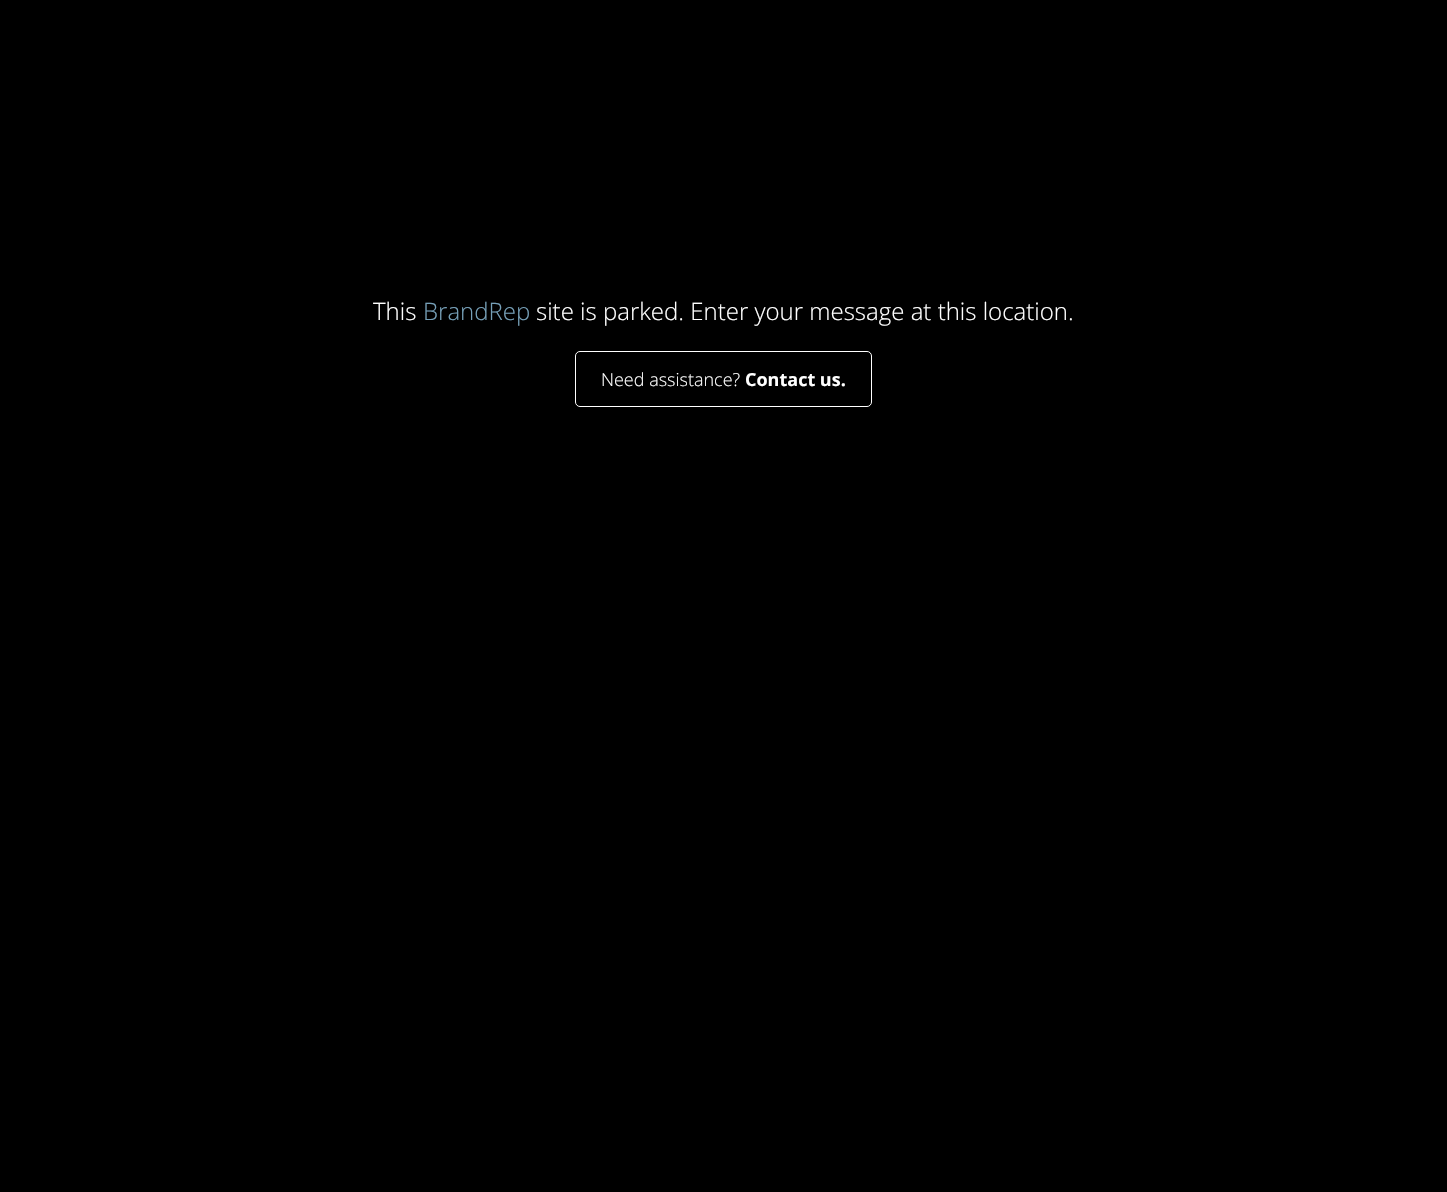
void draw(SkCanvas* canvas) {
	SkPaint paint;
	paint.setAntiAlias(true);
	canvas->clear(0xff000000);
	SkFont f1(fontMgr->matchFamilyStyle("Open Sans", SkFontStyle(300, SkFontStyle::kNormal_Width, SkFontStyle::kUpright_Slant)), 24);
	f1.setSubpixel(true);
	paint.setColor(0xffffffff);
	canvas->drawString("This", 373, 320, f1, paint);
	paint.setColor(0xff76a0b8);
	canvas->drawString("BrandRep", 423, 320, f1, paint);
	paint.setColor(0xffffffff);
	canvas->drawString("site is parked. Enter your message at this location.", 536, 320, f1, paint);
	paint.setStroke(true);
	paint.setStrokeWidth(1);
	canvas->drawRoundRect(SkRect::MakeXYWH(575.5, 351.5, 296, 55), 4.5, 4.5, paint);
	SkFont f2(fontMgr->matchFamilyStyle("Open Sans", SkFontStyle(300, SkFontStyle::kNormal_Width, SkFontStyle::kUpright_Slant)), 18);
	f2.setSubpixel(true);
	paint.setStroke(false);
	canvas->drawString("Need assistance?", 601, 386, f2, paint);
	SkFont f3(fontMgr->matchFamilyStyle("Open Sans", SkFontStyle::Bold()), 18);
	f3.setSubpixel(true);
	canvas->drawString("Contact us.", 745, 386, f3, paint);
}
